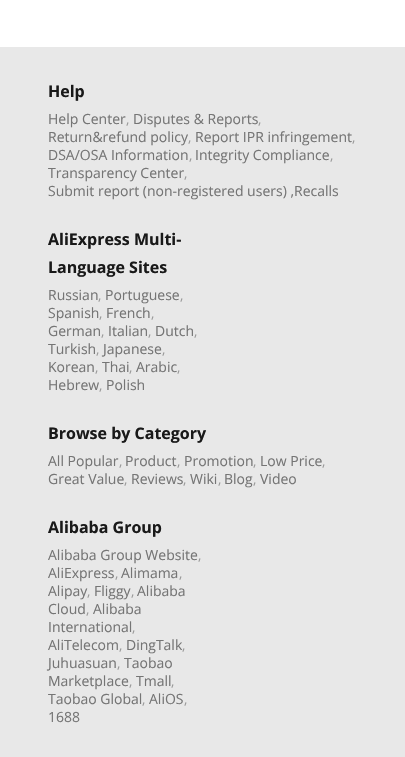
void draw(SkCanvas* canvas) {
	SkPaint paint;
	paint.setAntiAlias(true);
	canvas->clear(0xffffffff);
	paint.setColor(0xffe8e8e8);
	canvas->drawRect(SkRect::MakeXYWH(0, 47, 405, 710), paint);
	SkFont f1(fontMgr->matchFamilyStyle("Open Sans", SkFontStyle::Bold()), 16);
	f1.setSubpixel(true);
	paint.setColor(0xff191919);
	canvas->drawString("Help", 48, 97, f1, paint);
	SkFont f2(fontMgr->matchFamilyStyle("Open Sans", SkFontStyle::Normal()), 14);
	f2.setSubpixel(true);
	paint.setColor(0xff757575);
	canvas->drawString("Help Center", 48, 124, f2, paint);
	SkFont f3(fontMgr->matchFamilyStyle("Open Sans", SkFontStyle::Normal()), 13);
	f3.setSubpixel(true);
	paint.setColor(0xff999999);
	canvas->drawString(",", 126, 124, f3, paint);
	paint.setColor(0xff757575);
	canvas->drawString("Disputes & Reports", 133, 124, f2, paint);
	paint.setColor(0xff999999);
	canvas->drawString(",", 258, 124, f3, paint);
	paint.setColor(0xff757575);
	canvas->drawString("Return&refund policy", 48, 142, f2, paint);
	paint.setColor(0xff999999);
	canvas->drawString(",", 188, 142, f3, paint);
	paint.setColor(0xff757575);
	canvas->drawString("Report IPR infringement", 195, 142, f2, paint);
	paint.setColor(0xff999999);
	canvas->drawString(",", 352, 142, f3, paint);
	paint.setColor(0xff757575);
	canvas->drawString("DSA/OSA Information", 48, 160, f2, paint);
	paint.setColor(0xff999999);
	canvas->drawString(",", 189, 160, f3, paint);
	paint.setColor(0xff757575);
	canvas->drawString("Integrity Compliance", 195, 160, f2, paint);
	paint.setColor(0xff999999);
	canvas->drawString(",", 330, 160, f3, paint);
	paint.setColor(0xff757575);
	canvas->drawString("Transparency Center", 48, 178, f2, paint);
	paint.setColor(0xff999999);
	canvas->drawString(",", 184, 178, f3, paint);
	paint.setColor(0xff757575);
	canvas->drawString("Submit report (non-registered users) ,Recalls", 48, 196, f2, paint);
	paint.setColor(0xff191919);
	canvas->drawString("AliExpress Multi-", 48, 245, f1, paint);
	canvas->drawString("Language Sites", 48, 273, f1, paint);
	paint.setColor(0xff757575);
	canvas->drawString("Russian", 48, 300, f2, paint);
	paint.setColor(0xff999999);
	canvas->drawString(",", 98, 300, f3, paint);
	paint.setColor(0xff757575);
	canvas->drawString("Portuguese", 105, 300, f2, paint);
	paint.setColor(0xff999999);
	canvas->drawString(",", 180, 300, f3, paint);
	paint.setColor(0xff757575);
	canvas->drawString("Spanish", 48, 318, f2, paint);
	paint.setColor(0xff999999);
	canvas->drawString(",", 99, 318, f3, paint);
	paint.setColor(0xff757575);
	canvas->drawString("French", 106, 318, f2, paint);
	paint.setColor(0xff999999);
	canvas->drawString(",", 151, 318, f3, paint);
	paint.setColor(0xff757575);
	canvas->drawString("German", 48, 336, f2, paint);
	paint.setColor(0xff999999);
	canvas->drawString(",", 101, 336, f3, paint);
	paint.setColor(0xff757575);
	canvas->drawString("Italian", 108, 336, f2, paint);
	paint.setColor(0xff999999);
	canvas->drawString(",", 148, 336, f3, paint);
	paint.setColor(0xff757575);
	canvas->drawString("Dutch", 155, 336, f2, paint);
	paint.setColor(0xff999999);
	canvas->drawString(",", 194, 336, f3, paint);
	paint.setColor(0xff757575);
	canvas->drawString("Turkish", 48, 354, f2, paint);
	paint.setColor(0xff999999);
	canvas->drawString(",", 96, 354, f3, paint);
	paint.setColor(0xff757575);
	canvas->drawString("Japanese", 103, 354, f2, paint);
	paint.setColor(0xff999999);
	canvas->drawString(",", 162, 354, f3, paint);
	paint.setColor(0xff757575);
	canvas->drawString("Korean", 48, 372, f2, paint);
	paint.setColor(0xff999999);
	canvas->drawString(",", 95, 372, f3, paint);
	paint.setColor(0xff757575);
	canvas->drawString("Thai", 102, 372, f2, paint);
	paint.setColor(0xff999999);
	canvas->drawString(",", 129, 372, f3, paint);
	paint.setColor(0xff757575);
	canvas->drawString("Arabic", 136, 372, f2, paint);
	paint.setColor(0xff999999);
	canvas->drawString(",", 177, 372, f3, paint);
	paint.setColor(0xff757575);
	canvas->drawString("Hebrew", 48, 390, f2, paint);
	paint.setColor(0xff999999);
	canvas->drawString(",", 99, 390, f3, paint);
	paint.setColor(0xff757575);
	canvas->drawString("Polish", 106, 390, f2, paint);
	paint.setColor(0xff191919);
	canvas->drawString("Browse by Category", 48, 439, f1, paint);
	paint.setColor(0xff757575);
	canvas->drawString("All Popular", 48, 466, f2, paint);
	paint.setColor(0xff999999);
	canvas->drawString(",", 119, 466, f3, paint);
	paint.setColor(0xff757575);
	canvas->drawString("Product", 125, 466, f2, paint);
	paint.setColor(0xff999999);
	canvas->drawString(",", 177, 466, f3, paint);
	paint.setColor(0xff757575);
	canvas->drawString("Promotion", 184, 466, f2, paint);
	paint.setColor(0xff999999);
	canvas->drawString(",", 253, 466, f3, paint);
	paint.setColor(0xff757575);
	canvas->drawString("Low Price", 260, 466, f2, paint);
	paint.setColor(0xff999999);
	canvas->drawString(",", 322, 466, f3, paint);
	paint.setColor(0xff757575);
	canvas->drawString("Great Value", 48, 484, f2, paint);
	paint.setColor(0xff999999);
	canvas->drawString(",", 124, 484, f3, paint);
	paint.setColor(0xff757575);
	canvas->drawString("Reviews", 131, 484, f2, paint);
	paint.setColor(0xff999999);
	canvas->drawString(",", 183, 484, f3, paint);
	paint.setColor(0xff757575);
	canvas->drawString("Wiki", 190, 484, f2, paint);
	paint.setColor(0xff999999);
	canvas->drawString(",", 218, 484, f3, paint);
	paint.setColor(0xff757575);
	canvas->drawString("Blog", 224, 484, f2, paint);
	paint.setColor(0xff999999);
	canvas->drawString(",", 253, 484, f3, paint);
	paint.setColor(0xff757575);
	canvas->drawString("Video", 260, 484, f2, paint);
	paint.setColor(0xff191919);
	canvas->drawString("Alibaba Group", 48, 533, f1, paint);
	paint.setColor(0xff757575);
	canvas->drawString("Alibaba Group Website", 48, 560, f2, paint);
	paint.setColor(0xff999999);
	canvas->drawString(",", 198, 560, f3, paint);
	paint.setColor(0xff757575);
	canvas->drawString("AliExpress", 48, 578, f2, paint);
	paint.setColor(0xff999999);
	canvas->drawString(",", 115, 578, f3, paint);
	paint.setColor(0xff757575);
	canvas->drawString("Alimama", 121, 578, f2, paint);
	paint.setColor(0xff999999);
	canvas->drawString(",", 179, 578, f3, paint);
	paint.setColor(0xff757575);
	canvas->drawString("Alipay", 48, 596, f2, paint);
	paint.setColor(0xff999999);
	canvas->drawString(",", 87, 596, f3, paint);
	paint.setColor(0xff757575);
	canvas->drawString("Fliggy", 94, 596, f2, paint);
	paint.setColor(0xff999999);
	canvas->drawString(",", 131, 596, f3, paint);
	paint.setColor(0xff757575);
	canvas->drawString("Alibaba", 137, 596, f2, paint);
	canvas->drawString("Cloud", 48, 614, f2, paint);
	paint.setColor(0xff999999);
	canvas->drawString(",", 86, 614, f3, paint);
	paint.setColor(0xff757575);
	canvas->drawString("Alibaba", 93, 614, f2, paint);
	canvas->drawString("International", 48, 632, f2, paint);
	paint.setColor(0xff999999);
	canvas->drawString(",", 132, 632, f3, paint);
	paint.setColor(0xff757575);
	canvas->drawString("AliTelecom", 48, 650, f2, paint);
	paint.setColor(0xff999999);
	canvas->drawString(",", 119, 650, f3, paint);
	paint.setColor(0xff757575);
	canvas->drawString("DingTalk", 126, 650, f2, paint);
	paint.setColor(0xff999999);
	canvas->drawString(",", 182, 650, f3, paint);
	paint.setColor(0xff757575);
	canvas->drawString("Juhuasuan", 48, 668, f2, paint);
	paint.setColor(0xff999999);
	canvas->drawString(",", 117, 668, f3, paint);
	paint.setColor(0xff757575);
	canvas->drawString("Taobao", 124, 668, f2, paint);
	canvas->drawString("Marketplace", 48, 686, f2, paint);
	paint.setColor(0xff999999);
	canvas->drawString(",", 129, 686, f3, paint);
	paint.setColor(0xff757575);
	canvas->drawString("Tmall", 136, 686, f2, paint);
	paint.setColor(0xff999999);
	canvas->drawString(",", 171, 686, f3, paint);
	paint.setColor(0xff757575);
	canvas->drawString("Taobao Global", 48, 704, f2, paint);
	paint.setColor(0xff999999);
	canvas->drawString(",", 142, 704, f3, paint);
	paint.setColor(0xff757575);
	canvas->drawString("AliOS", 149, 704, f2, paint);
	paint.setColor(0xff999999);
	canvas->drawString(",", 184, 704, f3, paint);
	paint.setColor(0xff757575);
	canvas->drawString("1688", 48, 722, f2, paint);
}
